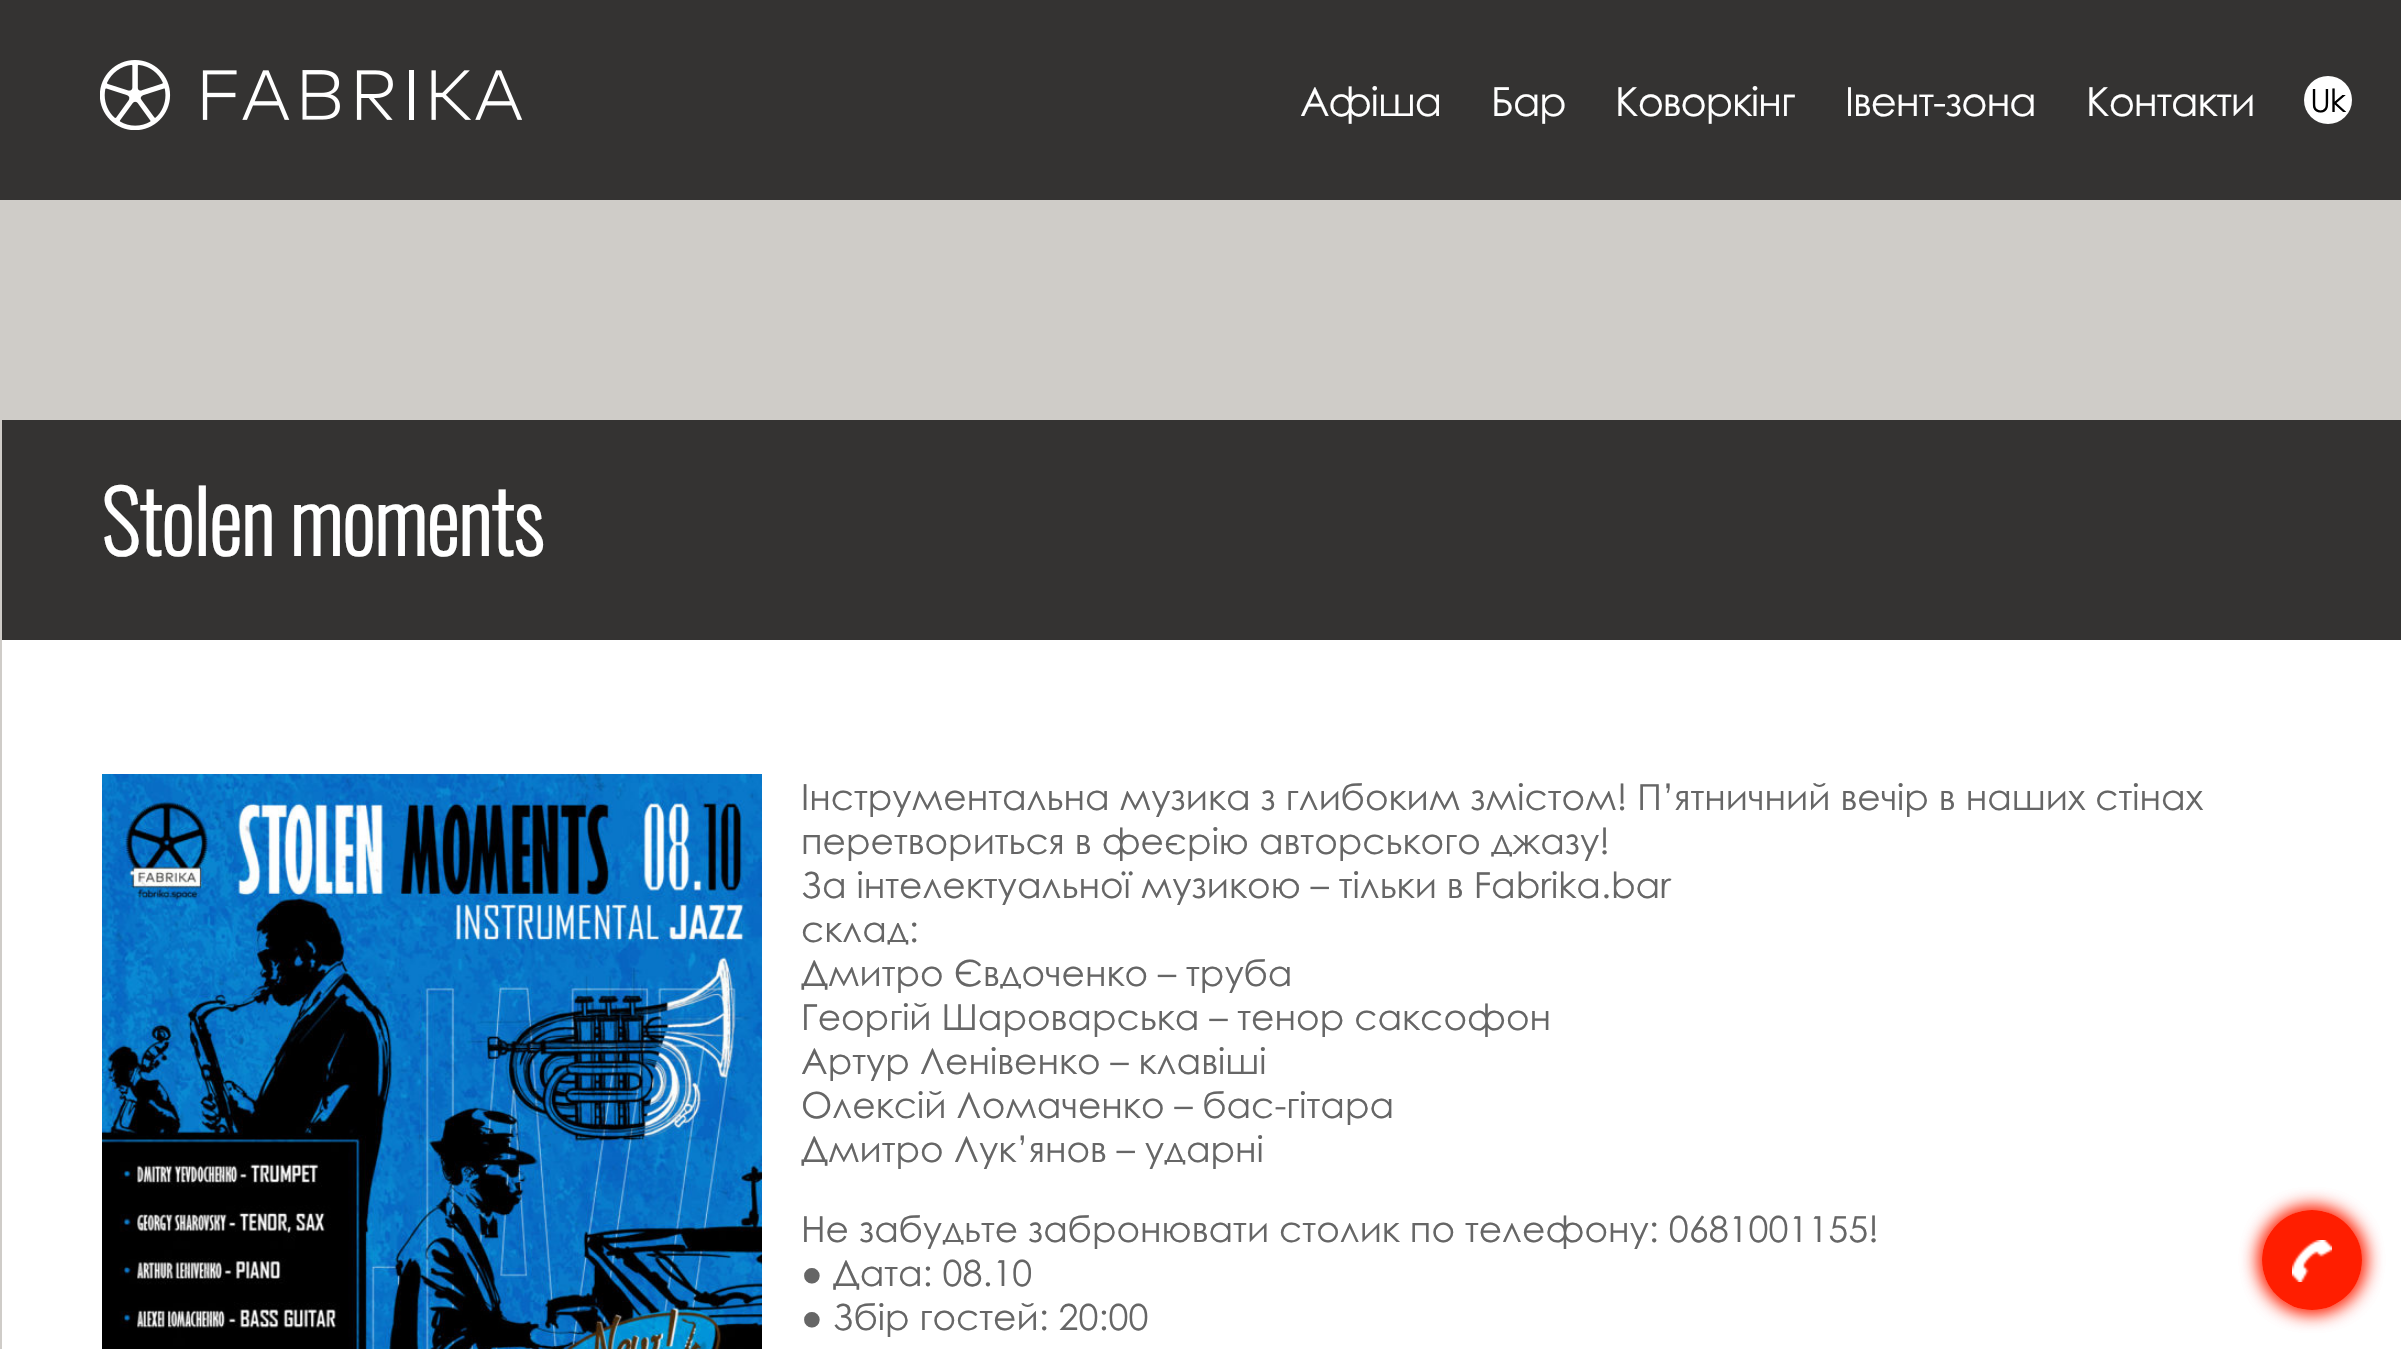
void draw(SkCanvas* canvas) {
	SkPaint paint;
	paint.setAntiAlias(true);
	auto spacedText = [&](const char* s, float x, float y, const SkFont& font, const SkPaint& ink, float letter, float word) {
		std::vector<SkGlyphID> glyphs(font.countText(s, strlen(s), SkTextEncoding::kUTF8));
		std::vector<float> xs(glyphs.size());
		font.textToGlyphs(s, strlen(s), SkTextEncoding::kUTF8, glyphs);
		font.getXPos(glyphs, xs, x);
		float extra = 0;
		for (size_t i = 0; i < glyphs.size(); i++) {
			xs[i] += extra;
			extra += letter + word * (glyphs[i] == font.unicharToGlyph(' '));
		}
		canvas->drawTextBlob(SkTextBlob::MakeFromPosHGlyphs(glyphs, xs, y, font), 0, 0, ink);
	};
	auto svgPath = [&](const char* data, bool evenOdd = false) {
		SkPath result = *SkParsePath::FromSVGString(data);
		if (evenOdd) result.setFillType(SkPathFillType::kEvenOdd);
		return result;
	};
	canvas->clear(0xffcfccc8);
	paint.setColor(0xff343332);
	canvas->drawRect(SkRect::MakeXYWH(0, 0, 2401, 200), paint);
	canvas->drawImageRect(SkImages::DeferredFromEncodedData(SkData::MakeFromFileName("img1.png")), SkRect::MakeXYWH(100, 60, 422, 70), SkSamplingOptions());
	SkFont f1(fontMgr->matchFamilyStyle("Century Gothic", SkFontStyle::Normal()), 40);
	f1.setSubpixel(true);
	paint.setColor(0xffffffff);
	spacedText("Афіша", 1300, 116, f1, paint, -1, 0);
	spacedText("Бар", 1491, 116, f1, paint, -1, 0);
	spacedText("Коворкінг", 1615, 116, f1, paint, -1, 0);
	spacedText("Івент-зона", 1845, 116, f1, paint, -1, 0);
	spacedText("Контакти", 2086, 116, f1, paint, -1, 0);
	canvas->drawCircle(2328, 100, 24, paint);
	SkFont f2(fontMgr->matchFamilyStyle("Century Gothic", SkFontStyle::Normal()), 32);
	f2.setSubpixel(true);
	paint.setColor(0xff000000);
	spacedText("Uk", 2310, 112, f2, paint, -1, 0);
	paint.setColor(0xff343332);
	canvas->drawRect(SkRect::MakeXYWH(2, 420, 2399, 220), paint);
	SkFont f3(fontMgr->matchFamilyStyle("Oswald", SkFontStyle::Bold()), 84);
	f3.setSubpixel(true);
	paint.setColor(0xffffffff);
	canvas->drawString("Stolen moments", 101, 556, f3, paint);
	canvas->drawRect(SkRect::MakeXYWH(2, 640, 2399, 709), paint);
	canvas->drawImageRect(SkImages::DeferredFromEncodedData(SkData::MakeFromFileName("img2.png")), SkRect::MakeXYWH(102, 774, 660, 575), SkSamplingOptions());
	SkFont f4(fontMgr->matchFamilyStyle("Century Gothic", SkFontStyle::Normal()), 36);
	f4.setSubpixel(true);
	paint.setColor(0xff666666);
	canvas->drawString("Інструментальна музика з глибоким змістом! П’ятничний вечір в наших стінах", 801, 810, f4, paint);
	canvas->drawString("перетвориться в феєрію авторського джазу!", 801, 854, f4, paint);
	canvas->drawString("За інтелектуальної музикою – тільки в Fabrika.bar", 801, 898, f4, paint);
	canvas->drawString("склад:", 801, 942, f4, paint);
	canvas->drawString("Дмитро Євдоченко – труба", 801, 986, f4, paint);
	canvas->drawString("Георгій Шароварська – тенор саксофон", 801, 1030, f4, paint);
	canvas->drawString("Артур Ленівенко – клавіші", 801, 1074, f4, paint);
	canvas->drawString("Олексій Ломаченко – бас-гітара", 801, 1118, f4, paint);
	canvas->drawString("Дмитро Лук’янов – ударні", 801, 1162, f4, paint);
	canvas->drawString("Не забудьте забронювати столик по телефону: 0681001155!", 801, 1242, f4, paint);
	canvas->drawString("● Дата: 08.10", 801, 1286, f4, paint);
	canvas->drawString("● Збір гостей: 20:00", 801, 1330, f4, paint);
	paint.setColor(0xffff1e00);
	paint.setMaskFilter(SkMaskFilter::MakeBlur(kNormal_SkBlurStyle, 10));
	canvas->drawRoundRect(SkRect::MakeXYWH(2262, 1210, 100, 100), 50, 50, paint);
	paint.setMaskFilter(nullptr);
	canvas->drawCircle(2312, 1260, 50, paint);
	canvas->drawImageRect(SkImages::DeferredFromEncodedData(SkData::MakeFromFileName("img3.png")), SkRect::MakeXYWH(2292, 1240, 40, 42), SkSamplingOptions());
	canvas->save();
	canvas->clipPath(svgPath("M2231 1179H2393V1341H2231ZM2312 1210C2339.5 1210 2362 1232.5 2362 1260C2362 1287.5 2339.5 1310 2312 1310C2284.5 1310 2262 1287.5 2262 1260C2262 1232.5 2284.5 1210 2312 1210Z", true), true);
	paint.setMaskFilter(SkMaskFilter::MakeBlur(kNormal_SkBlurStyle, 10));
	canvas->drawRoundRect(SkRect::MakeXYWH(2262, 1210, 100, 100), 50, 50, paint);
	paint.setMaskFilter(nullptr);
	canvas->restore();
}
